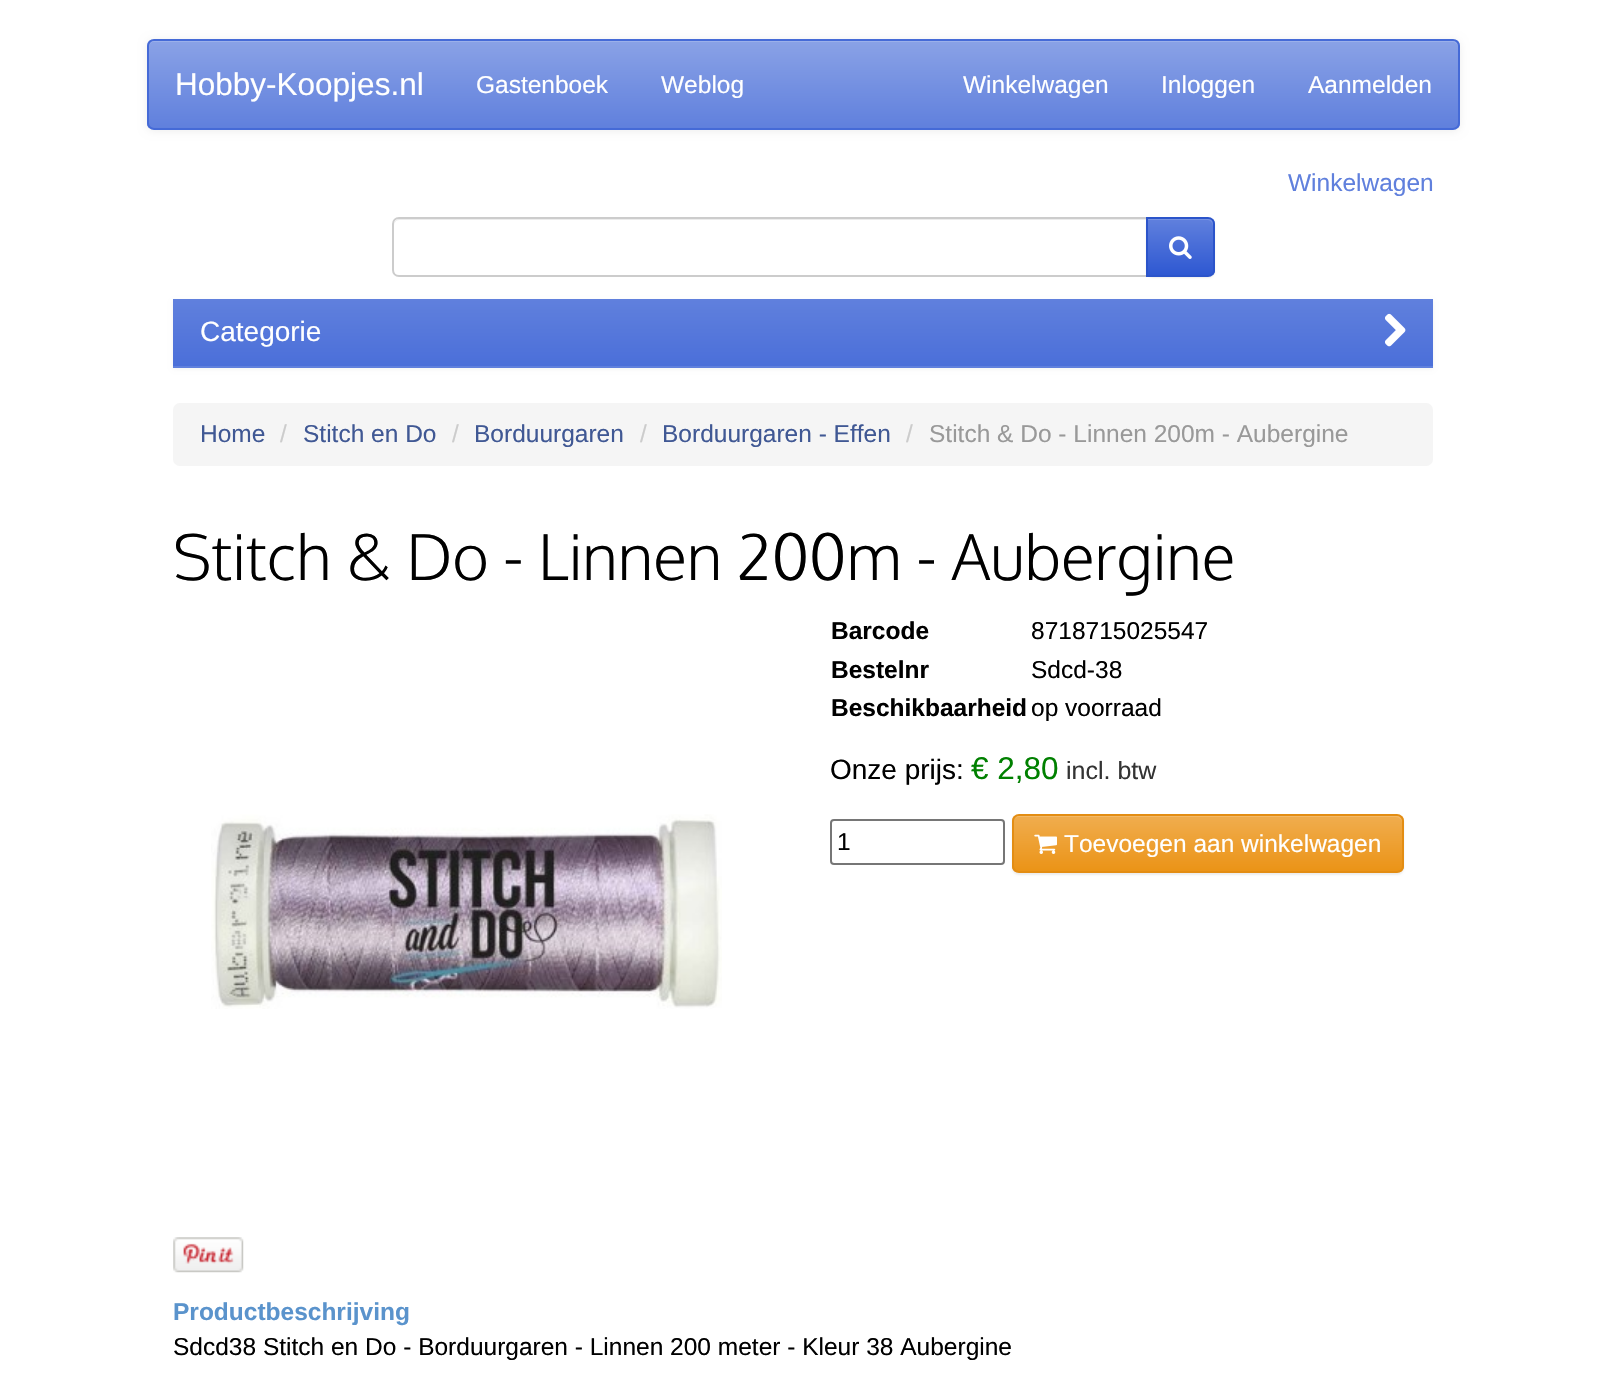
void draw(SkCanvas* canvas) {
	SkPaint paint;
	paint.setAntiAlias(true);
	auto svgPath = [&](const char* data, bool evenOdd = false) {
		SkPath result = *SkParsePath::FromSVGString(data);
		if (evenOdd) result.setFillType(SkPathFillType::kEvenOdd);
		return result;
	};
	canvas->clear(0xffffffff);
	paint.setColor(0x12000000);
	paint.setMaskFilter(SkMaskFilter::MakeBlur(kNormal_SkBlurStyle, 4.5));
	canvas->drawRoundRect(SkRect::MakeXYWH(147, 40, 1313, 91), 7, 7, paint);
	paint.setMaskFilter(nullptr);
	canvas->save();
	canvas->clipPath(svgPath("M154 39H1453C1457 39 1460 42 1460 46V123C1460 127 1457 130 1453 130H154C150 130 147 127 147 123V46C147 42 150 39 154 39Z"), true);
	{
		const SkColor colors[] = {0xff8aa2e6, 0xff6080dd};
		const float stops[] = {0, 1};
		const SkPoint ends[] = {{803, 40}, {803, 128}};
		paint.setShader(SkGradientShader::MakeLinear(ends, colors, stops, 2, SkTileMode::kClamp));
		paint.setAlpha(255);
	}
	canvas->drawRect(SkRect::MakeXYWH(147, 40, 1313, 88), paint);
	canvas->restore();
	paint.setShader(nullptr);
	paint.setColor(0xff9bb0ea);
	canvas->drawPath(svgPath("M154 42H1452C1455 42 1458 44 1458 47C1458 44 1457 40 1453 40H154C150 40 149 44 149 47C149 44 151 42 154 42Z"), paint);
	paint.setStroke(true);
	paint.setStrokeWidth(2);
	paint.setColor(0xff456ad7);
	canvas->drawRoundRect(SkRect::MakeXYWH(148, 40, 1311, 89), 6, 6, paint);
	SkFont f1(fontMgr->matchFamilyStyle("Liberation Sans", SkFontStyle::Normal()), 31.5);
	f1.setSubpixel(true);
	paint.setStroke(false);
	paint.setColor(0xffffffff);
	canvas->drawString("Hobby-Koopjes.nl", 175, 95, f1, paint);
	SkFont f2(fontMgr->matchFamilyStyle("Liberation Sans", SkFontStyle::Normal()), 24.5);
	f2.setSubpixel(true);
	canvas->drawString("Gastenboek", 476, 93, f2, paint);
	canvas->drawString("Weblog", 661, 93, f2, paint);
	canvas->drawString("Winkelwagen", 963, 93, f2, paint);
	canvas->drawString("Inloggen", 1161, 93, f2, paint);
	canvas->drawString("Aanmelden", 1308, 93, f2, paint);
	paint.setColor(0xff6080dd);
	canvas->drawString("Winkelwagen", 1288, 191, f2, paint);
	paint.setColor(0xffececec);
	canvas->drawPath(svgPath("M399 220H1146V219H399C395 219 394 223 394 226C394 223 396 220 399 220Z"), paint);
	paint.setStroke(true);
	paint.setColor(0xffcccccc);
	canvas->drawPath(svgPath("M399 218H1147V276H399C395.5 276 393 273.5 393 270V224C393 220.5 395.5 218 399 218Z"), paint);
	paint.setStroke(false);
	paint.setColor(0x12000000);
	paint.setMaskFilter(SkMaskFilter::MakeBlur(kNormal_SkBlurStyle, 1));
	canvas->drawRoundRect(SkRect::MakeXYWH(1146, 219, 69, 59), 7, 7, paint);
	paint.setMaskFilter(nullptr);
	canvas->save();
	canvas->clipPath(svgPath("M1146 217H1208C1212 217 1215 220 1215 224V270C1215 274 1212 277 1208 277H1146Z"), true);
	{
		const SkColor colors[] = {0xff6080dd, 0xff2e58d2};
		const float stops[] = {0, 1};
		const SkPoint ends[] = {{1180, 219}, {1180, 275}};
		paint.setShader(SkGradientShader::MakeLinear(ends, colors, stops, 2, SkTileMode::kClamp));
		paint.setAlpha(255);
	}
	canvas->drawRect(SkRect::MakeXYWH(1148, 219, 67, 56), paint);
	canvas->restore();
	paint.setShader(nullptr);
	paint.setColor(0x26ffffff);
	canvas->drawPath(svgPath("M1148 220H1208C1210 220 1213 223 1213 226V224C1213 221 1211 219 1208 219H1148Z"), paint);
	paint.setStroke(true);
	paint.setColor(0xff2b54ca);
	canvas->drawPath(svgPath("M1147 218H1208C1211.5 218 1214 220.5 1214 224V270C1214 273.5 1211.5 276 1208 276H1147Z"), paint);
	canvas->drawImageRect(SkImages::DeferredFromEncodedData(SkData::MakeFromFileName("img1.png")), SkRect::MakeXYWH(1169, 236, 23, 23), SkSamplingOptions());
	paint.setStroke(false);
	paint.setColor(0x0d000000);
	paint.setMaskFilter(SkMaskFilter::MakeBlur(kNormal_SkBlurStyle, 2));
	canvas->drawRect(SkRect::MakeXYWH(173, 301, 1260, 68), paint);
	paint.setMaskFilter(nullptr);
	paint.setColor(0xff6080dd);
	canvas->drawRect(SkRect::MakeXYWH(173, 366, 1260, 2), paint);
	{
		const SkColor colors[] = {0xff6080dd, 0xff4b6fd9};
		const float stops[] = {0, 1};
		const SkPoint ends[] = {{803, 299}, {803, 366}};
		paint.setShader(SkGradientShader::MakeLinear(ends, colors, stops, 2, SkTileMode::kClamp));
		paint.setAlpha(255);
	}
	canvas->drawRect(SkRect::MakeXYWH(173, 299, 1260, 67), paint);
	SkFont f3(fontMgr->matchFamilyStyle("Liberation Sans", SkFontStyle::Normal()), 28);
	f3.setSubpixel(true);
	paint.setShader(nullptr);
	paint.setColor(0xffffffff);
	canvas->drawString("Categorie", 200, 341, f3, paint);
	canvas->drawImageRect(SkImages::DeferredFromEncodedData(SkData::MakeFromFileName("img2.png")), SkRect::MakeXYWH(1385, 313, 21, 34), SkSamplingOptions());
	paint.setColor(0xfff5f5f5);
	canvas->drawRoundRect(SkRect::MakeXYWH(173, 403, 1260, 63), 7, 7, paint);
	paint.setColor(0xff405894);
	canvas->drawString("Home", 200, 442, f2, paint);
	paint.setColor(0xffcccccc);
	canvas->drawString("/", 280, 442, f2, paint);
	paint.setColor(0xff405894);
	canvas->drawString("Stitch en Do", 303, 442, f2, paint);
	paint.setColor(0xffcccccc);
	canvas->drawString("/", 452, 442, f2, paint);
	paint.setColor(0xff405894);
	canvas->drawString("Borduurgaren", 474, 442, f2, paint);
	paint.setColor(0xffcccccc);
	canvas->drawString("/", 640, 442, f2, paint);
	paint.setColor(0xff405894);
	canvas->drawString("Borduurgaren - Effen", 662, 442, f2, paint);
	paint.setColor(0xffcccccc);
	canvas->drawString("/", 906, 442, f2, paint);
	paint.setColor(0xff999999);
	canvas->drawString("Stitch & Do - Linnen 200m - Aubergine", 929, 442, f2, paint);
	SkFont f4(fontMgr->matchFamilyStyle("Oxygen", SkFontStyle(300, SkFontStyle::kNormal_Width, SkFontStyle::kUpright_Slant)), 63);
	f4.setSubpixel(true);
	paint.setColor(0xff000000);
	canvas->drawString("Stitch & Do - Linnen 200m - Aubergine", 173, 580, f4, paint);
	SkFont f5(fontMgr->matchFamilyStyle("Liberation Sans", SkFontStyle::Bold()), 24.5);
	f5.setSubpixel(true);
	canvas->drawString("Barcode", 831, 639, f5, paint);
	canvas->drawString("8718715025547", 1031, 639, f2, paint);
	canvas->drawString("Bestelnr", 831, 678, f5, paint);
	canvas->drawString("Sdcd-38", 1031, 678, f2, paint);
	canvas->drawString("Beschikbaarheid", 831, 716, f5, paint);
	canvas->drawString("op voorraad", 1031, 716, f2, paint);
	canvas->drawString("Onze prijs:", 830, 779, f3, paint);
	paint.setColor(0xff008000);
	canvas->drawString("€ 2,80", 971, 779, f1, paint);
	SkFont f6(fontMgr->matchFamilyStyle("Liberation Sans", SkFontStyle::Normal()), 25);
	f6.setSubpixel(true);
	paint.setColor(0xff333333);
	canvas->drawString("incl. btw", 1066, 779, f6, paint);
	paint.setStroke(true);
	paint.setColor(0xff767676);
	canvas->drawRoundRect(SkRect::MakeXYWH(831, 820, 173, 44), 3, 3, paint);
	paint.setStroke(false);
	paint.setColor(0xff000000);
	canvas->drawString("1", 837, 850, f2, paint);
	paint.setColor(0x12000000);
	paint.setMaskFilter(SkMaskFilter::MakeBlur(kNormal_SkBlurStyle, 1));
	canvas->drawRoundRect(SkRect::MakeXYWH(1012, 816, 392, 59), 7, 7, paint);
	paint.setMaskFilter(nullptr);
	canvas->save();
	canvas->clipPath(svgPath("M1019 814H1397C1401 814 1404 817 1404 821V866C1404 870 1401 873 1397 873H1019C1015 873 1012 870 1012 866V821C1012 817 1015 814 1019 814Z"), true);
	{
		const SkColor colors[] = {0xfff0ad4e, 0xffeb9316};
		const float stops[] = {0, 1};
		const SkPoint ends[] = {{1208, 816}, {1208, 872}};
		paint.setShader(SkGradientShader::MakeLinear(ends, colors, stops, 2, SkTileMode::kClamp));
		paint.setAlpha(255);
	}
	canvas->drawRect(SkRect::MakeXYWH(1012, 816, 392, 56), paint);
	canvas->restore();
	paint.setShader(nullptr);
	paint.setColor(0x26ffffff);
	canvas->drawPath(svgPath("M1018 817H1396C1399 817 1402 820 1402 822V821C1402 818 1400 816 1397 816H1018C1015 816 1013 818 1013 821V822C1013 820 1016 817 1018 817Z"), paint);
	paint.setStroke(true);
	paint.setColor(0xffe38d13);
	canvas->drawRoundRect(SkRect::MakeXYWH(1013, 815, 390, 57), 6, 6, paint);
	canvas->drawImageRect(SkImages::DeferredFromEncodedData(SkData::MakeFromFileName("img3.png")), SkRect::MakeXYWH(1034, 834, 23, 20), SkSamplingOptions());
	paint.setStroke(false);
	paint.setColor(0xffffffff);
	canvas->drawString("Toevoegen aan winkelwagen", 1064, 852, f2, paint);
	canvas->drawImageRect(SkImages::DeferredFromEncodedData(SkData::MakeFromFileName("img4.png")), SkRect::MakeXYWH(211, 814, 511, 195), SkSamplingOptions());
	canvas->drawImageRect(SkImages::DeferredFromEncodedData(SkData::MakeFromFileName("img5.png")), SkRect::MakeXYWH(173, 1237, 71, 36), SkSamplingOptions());
	paint.setColor(0xff5a93cc);
	canvas->drawString("Productbeschrijving", 173, 1320, f5, paint);
	paint.setColor(0xff000000);
	canvas->drawString("Sdcd38 Stitch en Do - Borduurgaren - Linnen 200 meter - Kleur 38 Aubergine", 173, 1355, f2, paint);
}
